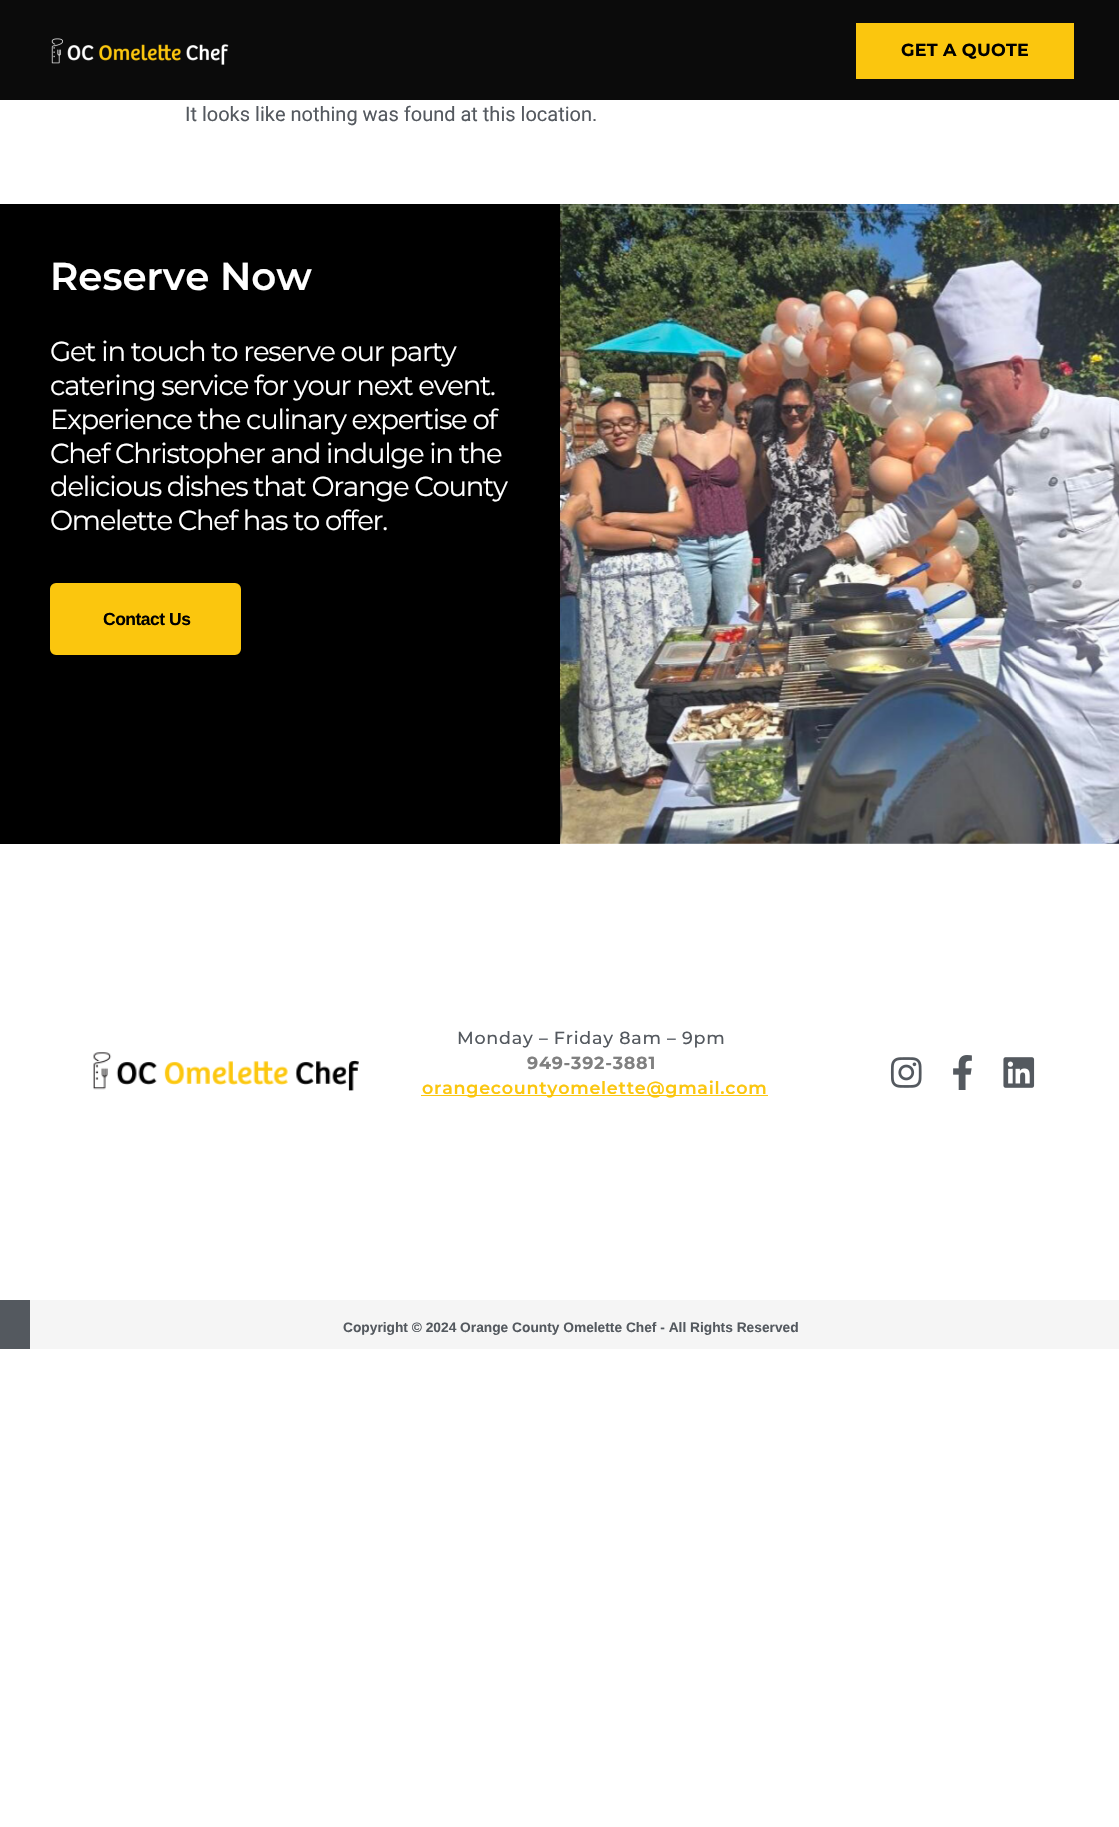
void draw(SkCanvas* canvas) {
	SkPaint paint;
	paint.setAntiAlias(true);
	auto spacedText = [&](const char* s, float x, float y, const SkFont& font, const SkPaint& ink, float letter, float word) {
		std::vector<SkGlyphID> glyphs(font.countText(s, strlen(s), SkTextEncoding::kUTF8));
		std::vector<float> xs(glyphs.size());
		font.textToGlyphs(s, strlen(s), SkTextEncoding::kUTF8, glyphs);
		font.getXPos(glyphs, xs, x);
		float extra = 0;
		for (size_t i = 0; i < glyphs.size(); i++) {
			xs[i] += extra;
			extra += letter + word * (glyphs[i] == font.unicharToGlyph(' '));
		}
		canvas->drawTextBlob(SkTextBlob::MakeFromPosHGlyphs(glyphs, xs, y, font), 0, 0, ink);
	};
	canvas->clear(0xffffffff);
	paint.setColor(0xff0b0b0b);
	canvas->drawRect(SkRect::MakeXYWH(0, 0, 1119, 100), paint);
	canvas->drawImageRect(SkImages::DeferredFromEncodedData(SkData::MakeFromFileName("img1.png")), SkRect::MakeXYWH(51, 38, 178, 27), SkSamplingOptions());
	paint.setColor(0xfffbc60e);
	canvas->drawRect(SkRect::MakeXYWH(856, 23, 218, 56), paint);
	SkFont f1(fontMgr->matchFamilyStyle("Montserrat", SkFontStyle::Bold()), 17.5);
	f1.setSubpixel(true);
	paint.setColor(0xff000000);
	spacedText("GET A QUOTE", 901, 56, f1, paint, 0.25, 0);
	SkFont f2(fontMgr->matchFamilyStyle("Roboto", SkFontStyle::Normal()), 20);
	f2.setSubpixel(true);
	paint.setColor(0xff54595f);
	canvas->drawString("It looks like nothing was found at this location.", 185, 121, f2, paint);
	paint.setColor(0xff000000);
	canvas->drawRect(SkRect::MakeXYWH(0, 204, 560, 640), paint);
	SkFont f3(fontMgr->matchFamilyStyle("Montserrat", SkFontStyle(600, SkFontStyle::kNormal_Width, SkFontStyle::kUpright_Slant)), 38.75);
	f3.setSubpixel(true);
	paint.setColor(0xffffffff);
	canvas->drawString("Reserve Now", 50, 290, f3, paint);
	SkFont f4(fontMgr->matchFamilyStyle("Montserrat", SkFontStyle::Normal()), 27.5);
	f4.setSubpixel(true);
	spacedText("Get in touch to reserve our party", 50, 361, f4, paint, -1.25, 0);
	spacedText("catering service for your next event.", 50, 395, f4, paint, -1.25, 0);
	spacedText("Experience the culinary expertise of", 50, 429, f4, paint, -1.25, 0);
	spacedText("Chef Christopher and indulge in the", 50, 463, f4, paint, -1.25, 0);
	spacedText("delicious dishes that Orange County", 50, 496, f4, paint, -1.25, 0);
	spacedText("Omelette Chef has to offer.", 50, 530, f4, paint, -1.25, 0);
	paint.setColor(0xfffbc60e);
	canvas->drawRoundRect(SkRect::MakeXYWH(51.5, 584.5, 188, 69), 4.5, 4.5, paint);
	paint.setStroke(true);
	paint.setStrokeWidth(3);
	canvas->drawRoundRect(SkRect::MakeXYWH(51.5, 584.5, 188, 69), 4.5, 4.5, paint);
	SkFont f5(fontMgr->matchFamilyStyle("Liberation Sans", SkFontStyle::Bold()), 17.5);
	f5.setSubpixel(true);
	paint.setStroke(false);
	paint.setColor(0xff000000);
	spacedText("Contact Us", 103, 625, f5, paint, -0.5, 0);
	canvas->drawImageRect(SkImages::DeferredFromEncodedData(SkData::MakeFromFileName("img2.png")), SkRect::MakeXYWH(560, 204, 559, 640), SkSamplingOptions());
	canvas->drawImageRect(SkImages::DeferredFromEncodedData(SkData::MakeFromFileName("img3.png")), SkRect::MakeXYWH(93, 1052, 266, 39), SkSamplingOptions());
	SkFont f6(fontMgr->matchFamilyStyle("Montserrat", SkFontStyle(500, SkFontStyle::kNormal_Width, SkFontStyle::kUpright_Slant)), 17.5);
	f6.setSubpixel(true);
	paint.setColor(0xff54595f);
	spacedText("Monday – Friday 8am – 9pm", 457, 1044, f6, paint, 0.75, 0);
	paint.setColor(0xff808080);
	spacedText("949-392-3881", 527, 1069, f1, paint, 0.75, 0);
	paint.setColor(0xfffbc60e);
	canvas->drawRect(SkRect::MakeXYWH(421, 1095, 347, 1), paint);
	SkFont f7(fontMgr->matchFamilyStyle("Montserrat", SkFontStyle(600, SkFontStyle::kNormal_Width, SkFontStyle::kUpright_Slant)), 17.5);
	f7.setSubpixel(true);
	spacedText("orangecountyomelette@gmail.com", 422, 1094, f7, paint, 0.75, 0);
	canvas->drawImageRect(SkImages::DeferredFromEncodedData(SkData::MakeFromFileName("img4.png")), SkRect::MakeXYWH(890, 1057, 32, 31), SkSamplingOptions());
	canvas->drawImageRect(SkImages::DeferredFromEncodedData(SkData::MakeFromFileName("img5.png")), SkRect::MakeXYWH(953, 1055, 19, 35), SkSamplingOptions());
	canvas->drawImageRect(SkImages::DeferredFromEncodedData(SkData::MakeFromFileName("img6.png")), SkRect::MakeXYWH(1003, 1057, 32, 31), SkSamplingOptions());
	paint.setColor(0xfff5f5f5);
	canvas->drawRect(SkRect::MakeXYWH(30, 1300, 1089, 49), paint);
	paint.setColor(0xff54595f);
	canvas->drawRect(SkRect::MakeXYWH(0, 1300, 30, 49), paint);
	SkFont f8(fontMgr->matchFamilyStyle("Liberation Sans", SkFontStyle::Bold()), 13.75);
	f8.setSubpixel(true);
	canvas->drawString("Copyright © 2024 Orange County Omelette Chef - All Rights Reserved", 343, 1332, f8, paint);
}
